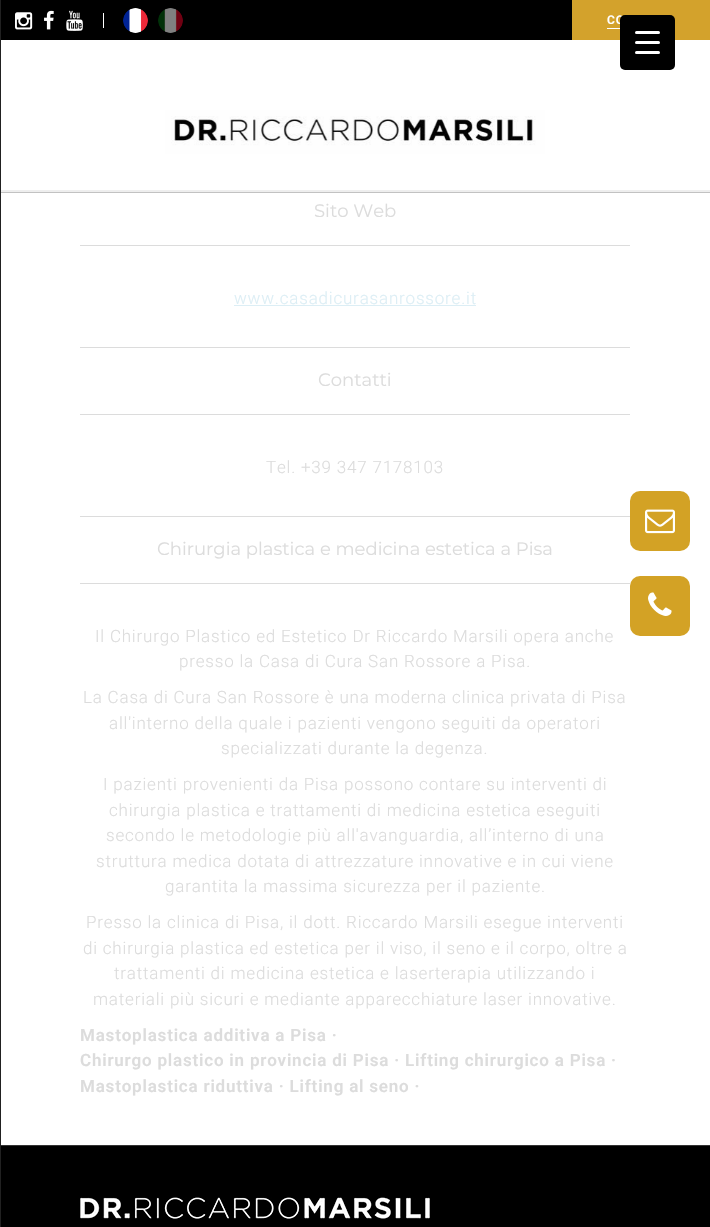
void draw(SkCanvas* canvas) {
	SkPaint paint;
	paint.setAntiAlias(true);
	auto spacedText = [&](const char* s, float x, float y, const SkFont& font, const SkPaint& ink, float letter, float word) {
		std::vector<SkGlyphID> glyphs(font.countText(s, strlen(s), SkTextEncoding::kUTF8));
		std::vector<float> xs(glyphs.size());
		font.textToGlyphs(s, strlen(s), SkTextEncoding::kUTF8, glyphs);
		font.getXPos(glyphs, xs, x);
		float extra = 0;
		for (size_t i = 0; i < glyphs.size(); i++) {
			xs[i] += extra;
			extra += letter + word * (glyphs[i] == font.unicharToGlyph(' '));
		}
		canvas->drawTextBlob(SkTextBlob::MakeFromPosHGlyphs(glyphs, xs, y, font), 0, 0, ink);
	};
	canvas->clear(0xffffffff);
	paint.setColor(0xffeeeeee);
	canvas->drawRect(SkRect::MakeXYWH(0, 190, 710, 2), paint);
	paint.setColor(0xffc2c2c2);
	canvas->drawRect(SkRect::MakeXYWH(0, 192, 710, 1), paint);
	paint.setColor(0xff333333);
	canvas->drawRect(SkRect::MakeXYWH(0, 1145, 710, 1), paint);
	paint.setColor(0xff212121);
	canvas->drawRect(SkRect::MakeXYWH(0, 0, 1, 1227), paint);
	paint.setColor(0xff000000);
	canvas->drawRect(SkRect::MakeXYWH(1, 0, 571, 40), paint);
	canvas->drawImageRect(SkImages::DeferredFromEncodedData(SkData::MakeFromFileName("img1.png")), SkRect::MakeXYWH(15, 12, 18, 18), SkSamplingOptions());
	canvas->drawImageRect(SkImages::DeferredFromEncodedData(SkData::MakeFromFileName("img2.png")), SkRect::MakeXYWH(44, 10, 10, 20), SkSamplingOptions());
	canvas->drawImageRect(SkImages::DeferredFromEncodedData(SkData::MakeFromFileName("img3.png")), SkRect::MakeXYWH(66, 10, 17, 21), SkSamplingOptions());
	paint.setColor(0xffffffff);
	canvas->drawRect(SkRect::MakeXYWH(103, 13, 1, 15), paint);
	canvas->drawImageRect(SkImages::DeferredFromEncodedData(SkData::MakeFromFileName("img4.png")), SkRect::MakeXYWH(123, 8, 25, 25), SkSamplingOptions());
	canvas->drawImageRect(SkImages::DeferredFromEncodedData(SkData::MakeFromFileName("img5.png")), SkRect::MakeXYWH(158, 8, 25, 25), SkSamplingOptions());
	paint.setColor(0xffd3a22c);
	canvas->drawRect(SkRect::MakeXYWH(572, 0, 138, 40), paint);
	SkFont f1(fontMgr->matchFamilyStyle("Roboto", SkFontStyle(600, SkFontStyle::kNormal_Width, SkFontStyle::kUpright_Slant)), 12);
	f1.setSubpixel(true);
	paint.setColor(0xffffffff);
	spacedText("CO", 607, 24, f1, paint, 1, 0);
	canvas->drawRect(SkRect::MakeXYWH(607, 28, 13, 1), paint);
	canvas->drawImageRect(SkImages::DeferredFromEncodedData(SkData::MakeFromFileName("img6.png")), SkRect::MakeXYWH(165, 110, 380, 44), SkSamplingOptions());
	paint.setColor(0xffdcdcdc);
	canvas->drawRect(SkRect::MakeXYWH(80, 245, 550, 1), paint);
	SkFont f2(fontMgr->matchFamilyStyle("Montserrat", SkFontStyle::Normal()), 18);
	f2.setSubpixel(true);
	canvas->drawString("Sito Web", 314, 217, f2, paint);
	SkFont f3(fontMgr->matchFamilyStyle("Roboto", SkFontStyle(300, SkFontStyle::kNormal_Width, SkFontStyle::kUpright_Slant)), 17);
	f3.setSubpixel(true);
	paint.setColor(0xffdceef5);
	spacedText("www.casadicurasanrossore.it", 234, 304, f3, paint, 0.8, 0);
	canvas->drawRect(SkRect::MakeXYWH(234, 305, 242, 1), paint);
	paint.setColor(0xffdcdcdc);
	canvas->drawRect(SkRect::MakeXYWH(80, 347, 550, 1), paint);
	canvas->drawRect(SkRect::MakeXYWH(80, 414, 550, 1), paint);
	canvas->drawString("Contatti", 318, 386, f2, paint);
	spacedText("Tel. +39 347 7178103", 266, 473, f3, paint, 0.8, 0);
	canvas->drawRect(SkRect::MakeXYWH(80, 516, 550, 1), paint);
	canvas->drawRect(SkRect::MakeXYWH(80, 583, 550, 1), paint);
	canvas->drawString("Chirurgia plastica e medicina estetica a Pisa", 157, 555, f2, paint);
	spacedText("Il Chirurgo Plastico ed Estetico Dr Riccardo Marsili opera anche", 95, 642, f3, paint, 0.8, 0);
	spacedText("presso la Casa di Cura San Rossore a Pisa.", 179, 667, f3, paint, 0.8, 0);
	spacedText("La Casa di Cura San Rossore è una moderna clinica privata di Pisa", 83, 703, f3, paint, 0.8, 0);
	spacedText("all'interno della quale i pazienti vengono seguiti da operatori", 109, 729, f3, paint, 0.8, 0);
	spacedText("specializzati durante la degenza.", 221, 754, f3, paint, 0.8, 0);
	spacedText("I pazienti provenienti da Pisa possono contare su interventi di", 103, 790, f3, paint, 0.8, 0);
	spacedText("chirurgia plastica e trattamenti di medicina estetica eseguiti", 109, 816, f3, paint, 0.8, 0);
	spacedText("secondo le metodologie più all'avanguardia, all’interno di una", 106, 841, f3, paint, 0.8, 0);
	spacedText("struttura medica dotata di attrezzature innovative e in cui viene", 96, 867, f3, paint, 0.8, 0);
	spacedText("garantita la massima sicurezza per il paziente.", 165, 892, f3, paint, 0.8, 0);
	spacedText("Presso la clinica di Pisa, il dott. Riccardo Marsili esegue interventi", 86, 928, f3, paint, 0.8, 0);
	spacedText("di chirurgia plastica ed estetica per il viso, il seno e il corpo, oltre a", 83, 954, f3, paint, 0.8, 0);
	spacedText("trattamenti di medicina estetica e laserterapia utilizzando i", 114, 979, f3, paint, 0.8, 0);
	spacedText("materiali più sicuri e mediante apparecchiature laser innovative.", 93, 1005, f3, paint, 0.8, 0);
	SkFont f4(fontMgr->matchFamilyStyle("Roboto", SkFontStyle(600, SkFontStyle::kNormal_Width, SkFontStyle::kUpright_Slant)), 17);
	f4.setSubpixel(true);
	spacedText("Mastoplastica additiva a Pisa ·", 80, 1041, f4, paint, 0.8, 0);
	spacedText("Chirurgo plastico in provincia di Pisa · Lifting chirurgico a Pisa ·", 80, 1066, f4, paint, 0.8, 0);
	spacedText("Mastoplastica riduttiva · Lifting al seno ·", 80, 1092, f4, paint, 0.8, 0);
	paint.setColor(0xff000000);
	canvas->drawRect(SkRect::MakeXYWH(1, 1146, 709, 81), paint);
	canvas->drawImageRect(SkImages::DeferredFromEncodedData(SkData::MakeFromFileName("img7.png")), SkRect::MakeXYWH(80, 1197, 350, 22), SkSamplingOptions());
	canvas->drawRoundRect(SkRect::MakeXYWH(620, 15, 55, 55), 5, 5, paint);
	paint.setColor(0xffffffff);
	canvas->drawRoundRect(SkRect::MakeXYWH(635, 41, 25, 3), 1.5, 1.5, paint);
	canvas->drawRoundRect(SkRect::MakeXYWH(635, 31, 25, 3), 1.5, 1.5, paint);
	canvas->drawRoundRect(SkRect::MakeXYWH(635, 51, 25, 3), 1.5, 1.5, paint);
	paint.setColor(0xffd3a225);
	canvas->drawRoundRect(SkRect::MakeXYWH(630, 491, 60, 60), 10, 10, paint);
	canvas->drawImageRect(SkImages::DeferredFromEncodedData(SkData::MakeFromFileName("img8.png")), SkRect::MakeXYWH(645, 509, 30, 25), SkSamplingOptions());
	canvas->drawRoundRect(SkRect::MakeXYWH(630, 576, 60, 60), 10, 10, paint);
	canvas->drawImageRect(SkImages::DeferredFromEncodedData(SkData::MakeFromFileName("img9.png")), SkRect::MakeXYWH(648, 592, 24, 24), SkSamplingOptions());
}
